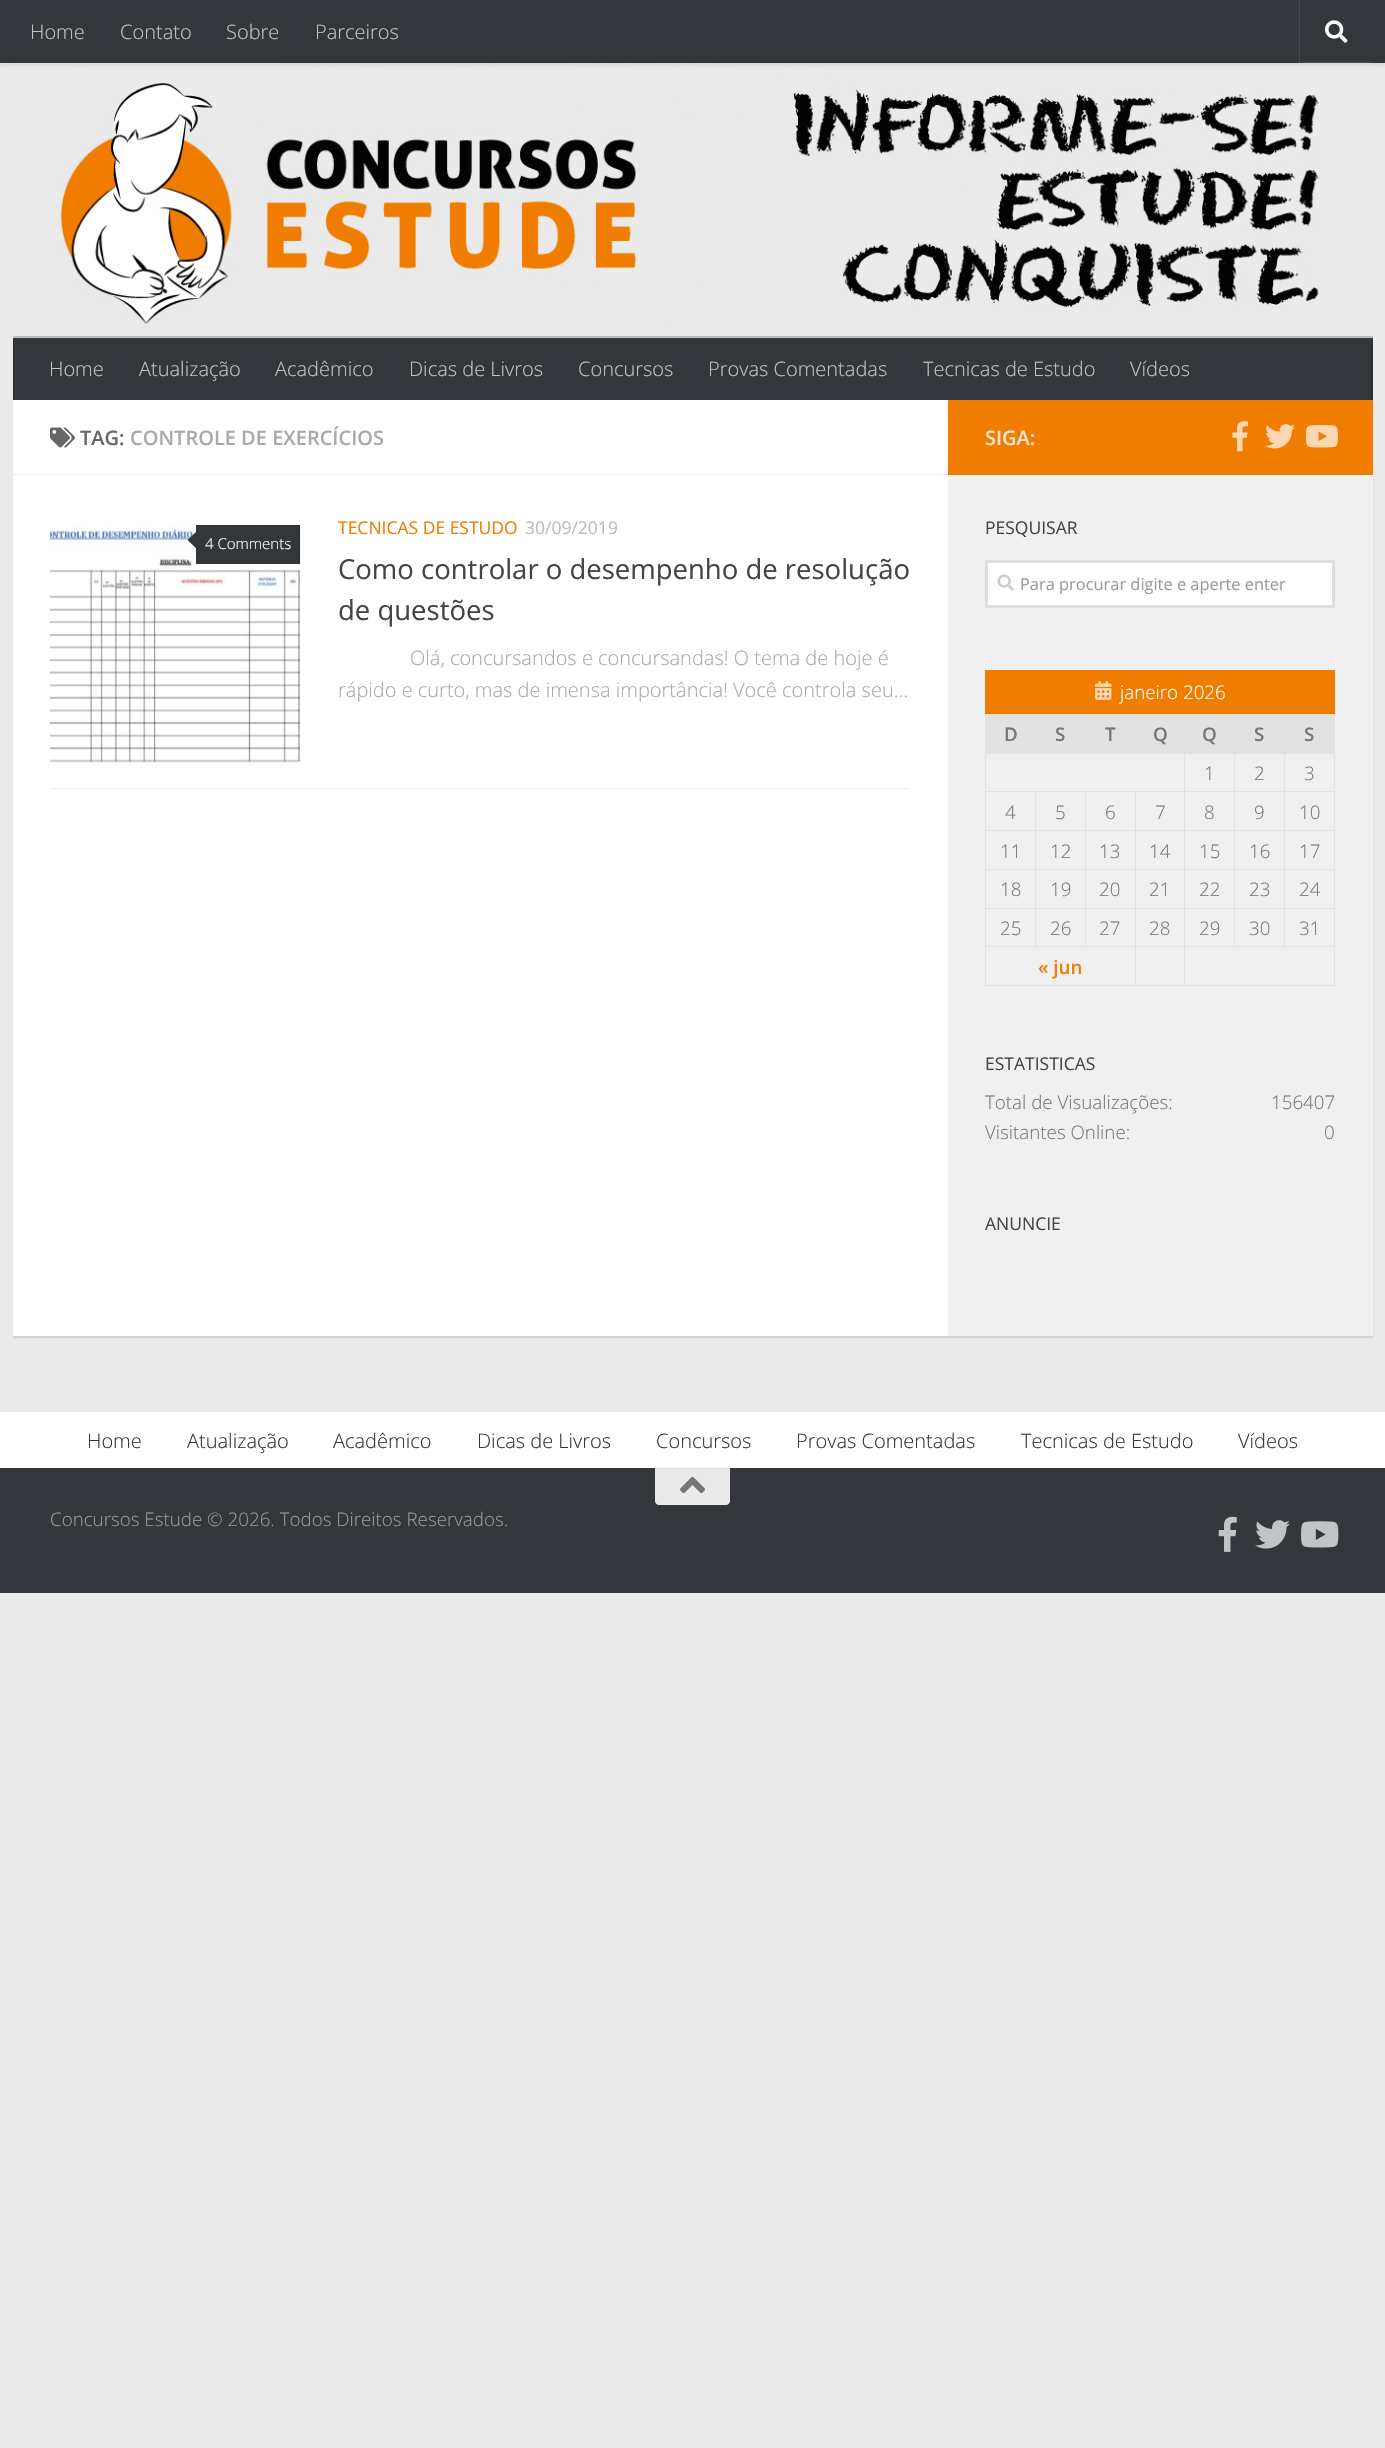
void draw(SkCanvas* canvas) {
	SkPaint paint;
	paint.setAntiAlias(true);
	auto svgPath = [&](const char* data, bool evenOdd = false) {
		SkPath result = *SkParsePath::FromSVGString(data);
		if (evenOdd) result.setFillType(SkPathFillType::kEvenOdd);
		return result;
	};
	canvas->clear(0xffeaeaea);
	paint.setColor(0x1a000000);
	paint.setMaskFilter(SkMaskFilter::MakeBlur(kNormal_SkBlurStyle, 0.5));
	canvas->drawRect(SkRect::MakeXYWH(13, 401, 1360, 937), paint);
	paint.setMaskFilter(nullptr);
	paint.setColor(0xffeaeaea);
	canvas->drawRect(SkRect::MakeXYWH(13, 401, 1360, 74), paint);
	canvas->drawImageRect(SkImages::DeferredFromEncodedData(SkData::MakeFromFileName("img2.png")), SkRect::MakeXYWH(13, 63, 1306, 261), SkSamplingOptions());
	paint.setColor(0x26ffffff);
	canvas->drawRect(SkRect::MakeXYWH(0, 63, 1385, 1), paint);
	paint.setColor(0x33000000);
	paint.setMaskFilter(SkMaskFilter::MakeBlur(kNormal_SkBlurStyle, 3));
	canvas->drawRect(SkRect::MakeXYWH(0, 0, 1385, 63), paint);
	paint.setMaskFilter(nullptr);
	paint.setColor(0xff33363b);
	canvas->drawRect(SkRect::MakeXYWH(0, 0, 1385, 63), paint);
	SkFont f1(fontMgr->matchFamilyStyle("Open Sans", SkFontStyle(300, SkFontStyle::kNormal_Width, SkFontStyle::kUpright_Slant)), 20);
	f1.setSubpixel(true);
	paint.setColor(0xffc2c3c4);
	canvas->drawString("Home", 30, 39, f1, paint);
	canvas->drawString("Contato", 120, 39, f1, paint);
	canvas->drawString("Sobre", 226, 39, f1, paint);
	canvas->drawString("Parceiros", 315, 39, f1, paint);
	paint.setColor(0xff474a4f);
	canvas->drawPath(svgPath("M1299 0V63H1371V62H1300V0Z"), paint);
	canvas->drawImageRect(SkImages::DeferredFromEncodedData(SkData::MakeFromFileName("img1.png")), SkRect::MakeXYWH(1325, 20, 23, 23), SkSamplingOptions());
	paint.setColor(0xffbbbbbb);
	canvas->drawPath(svgPath("M13 336V338H1372V399H1373V336Z"), paint);
	paint.setColor(0xff33363b);
	canvas->drawRect(SkRect::MakeXYWH(14, 338, 1359, 62), paint);
	paint.setColor(0xff292b2f);
	canvas->drawRect(SkRect::MakeXYWH(1371, 338, 1, 62), paint);
	canvas->drawRect(SkRect::MakeXYWH(13, 338, 1, 62), paint);
	paint.setColor(0x0dffffff);
	canvas->drawRect(SkRect::MakeXYWH(13, 338, 1360, 1), paint);
	paint.setColor(0xffc2c3c4);
	canvas->drawString("Home", 49, 376, f1, paint);
	canvas->drawString("Atualização", 139, 376, f1, paint);
	canvas->drawString("Acadêmico", 275, 376, f1, paint);
	canvas->drawString("Dicas de Livros", 409, 376, f1, paint);
	canvas->drawString("Concursos", 578, 376, f1, paint);
	canvas->drawString("Provas Comentadas", 708, 376, f1, paint);
	canvas->drawString("Tecnicas de Estudo", 923, 376, f1, paint);
	canvas->drawString("Vídeos", 1130, 376, f1, paint);
	paint.setColor(0xffffffff);
	canvas->drawRect(SkRect::MakeXYWH(13, 400, 935, 936), paint);
	paint.setColor(0xffeeeeee);
	canvas->drawRect(SkRect::MakeXYWH(13, 474, 935, 1), paint);
	canvas->drawImageRect(SkImages::DeferredFromEncodedData(SkData::MakeFromFileName("img3.png")), SkRect::MakeXYWH(50, 427, 25, 21), SkSamplingOptions());
	SkFont f2(fontMgr->matchFamilyStyle("Open Sans", SkFontStyle(600, SkFontStyle::kNormal_Width, SkFontStyle::kUpright_Slant)), 20);
	f2.setSubpixel(true);
	paint.setColor(0xff666666);
	canvas->drawString("TAG:", 80, 445, f2, paint);
	paint.setColor(0xffaaaaaa);
	canvas->drawString("CONTROLE DE EXERCÍCIOS", 130, 445, f2, paint);
	paint.setColor(0xffeeeeee);
	canvas->drawRect(SkRect::MakeXYWH(50, 788, 860, 1), paint);
	canvas->drawImageRect(SkImages::DeferredFromEncodedData(SkData::MakeFromFileName("img4.png")), SkRect::MakeXYWH(50, 524, 250, 239), SkSamplingOptions());
	paint.setColor(0xff33363b);
	canvas->drawRect(SkRect::MakeXYWH(196, 525, 103, 39), paint);
	paint.setColor(0xff292b2f);
	canvas->drawRect(SkRect::MakeXYWH(299, 525, 1, 39), paint);
	paint.setColor(0xff33363b);
	canvas->drawPath(svgPath("M199 529V551L187.5 540Z"), paint);
	SkFont f3(fontMgr->matchFamilyStyle("Open Sans", SkFontStyle(300, SkFontStyle::kNormal_Width, SkFontStyle::kUpright_Slant)), 15);
	f3.setSubpixel(true);
	paint.setColor(0xffffffff);
	canvas->drawString("4 Comments", 205, 549, f3, paint);
	SkFont f4(fontMgr->matchFamilyStyle("Open Sans", SkFontStyle::Normal()), 17.5);
	f4.setSubpixel(true);
	paint.setColor(0xfff07d00);
	canvas->drawString("TECNICAS DE ESTUDO", 338, 534, f4, paint);
	paint.setColor(0xffbbbbbb);
	canvas->drawString("30/09/2019", 525, 534, f4, paint);
	SkFont f5(fontMgr->matchFamilyStyle("Open Sans", SkFontStyle::Normal()), 27.5);
	f5.setSubpixel(true);
	paint.setColor(0xff444444);
	canvas->drawString("Como controlar o desempenho de resolução", 338, 579, f5, paint);
	canvas->drawString("de questões", 338, 620, f5, paint);
	paint.setColor(0xffaaaaaa);
	canvas->drawString("Olá, concursandos e concursandas! O tema de hoje é", 410, 665, f1, paint);
	canvas->drawString("rápido e curto, mas de imensa importância! Você controla seu...", 338, 697, f1, paint);
	paint.setColor(0xfff07d00);
	canvas->drawRect(SkRect::MakeXYWH(948, 400, 425, 75), paint);
	paint.setColor(0xfffce5cc);
	canvas->drawString("SIGA:", 985, 445, f2, paint);
	canvas->drawImageRect(SkImages::DeferredFromEncodedData(SkData::MakeFromFileName("img5.png")), SkRect::MakeXYWH(1232, 421, 16, 31), SkSamplingOptions());
	canvas->drawImageRect(SkImages::DeferredFromEncodedData(SkData::MakeFromFileName("img6.png")), SkRect::MakeXYWH(1265, 424, 30, 25), SkSamplingOptions());
	canvas->drawImageRect(SkImages::DeferredFromEncodedData(SkData::MakeFromFileName("img7.png")), SkRect::MakeXYWH(1305, 425, 33, 23), SkSamplingOptions());
	paint.setColor(0xfff0f0f0);
	canvas->drawRect(SkRect::MakeXYWH(948, 475, 425, 861), paint);
	paint.setColor(0xff444444);
	canvas->drawString("PESQUISAR", 985, 534, f4, paint);
	paint.setColor(0xffffffff);
	canvas->drawRect(SkRect::MakeXYWH(986.5, 561.5, 347, 45), paint);
	paint.setStroke(true);
	paint.setStrokeWidth(3);
	paint.setColor(0xffdddddd);
	canvas->drawRect(SkRect::MakeXYWH(986.5, 561.5, 347, 45), paint);
	canvas->drawImageRect(SkImages::DeferredFromEncodedData(SkData::MakeFromFileName("img8.png")), SkRect::MakeXYWH(997, 574, 17, 17), SkSamplingOptions());
	SkFont f6(fontMgr->matchFamilyStyle("Open Sans", SkFontStyle::Normal()), 16.4);
	f6.setSubpixel(true);
	paint.setStroke(false);
	paint.setColor(0xff999b9d);
	canvas->drawString("Para procurar digite e aperte enter", 1020, 590, f6, paint);
	paint.setColor(0xfff07d00);
	canvas->drawRect(SkRect::MakeXYWH(985, 670, 350, 44), paint);
	canvas->drawImageRect(SkImages::DeferredFromEncodedData(SkData::MakeFromFileName("img9.png")), SkRect::MakeXYWH(1095, 681, 17, 19), SkSamplingOptions());
	SkFont f7(fontMgr->matchFamilyStyle("Open Sans", SkFontStyle(300, SkFontStyle::kNormal_Width, SkFontStyle::kUpright_Slant)), 18.75);
	f7.setSubpixel(true);
	paint.setColor(0xffffffff);
	canvas->drawString("janeiro 2026", 1120, 699, f7, paint);
	paint.setColor(0xffe2e2e2);
	canvas->drawRect(SkRect::MakeXYWH(986, 715, 349, 38), paint);
	canvas->drawRect(SkRect::MakeXYWH(985, 714, 350, 1), paint);
	canvas->drawRect(SkRect::MakeXYWH(1284, 753, 51, 1), paint);
	canvas->drawRect(SkRect::MakeXYWH(1284, 791, 51, 1), paint);
	canvas->drawRect(SkRect::MakeXYWH(1284, 830, 51, 1), paint);
	canvas->drawRect(SkRect::MakeXYWH(1284, 869, 51, 1), paint);
	canvas->drawRect(SkRect::MakeXYWH(1284, 908, 51, 1), paint);
	canvas->drawRect(SkRect::MakeXYWH(1334, 908, 1, 40), paint);
	canvas->drawRect(SkRect::MakeXYWH(1284, 946, 51, 1), paint);
	canvas->drawRect(SkRect::MakeXYWH(1284, 908, 1, 40), paint);
	canvas->drawRect(SkRect::MakeXYWH(1234, 908, 51, 1), paint);
	canvas->drawRect(SkRect::MakeXYWH(1284, 869, 1, 40), paint);
	canvas->drawRect(SkRect::MakeXYWH(1234, 869, 51, 1), paint);
	canvas->drawRect(SkRect::MakeXYWH(1284, 830, 1, 40), paint);
	canvas->drawRect(SkRect::MakeXYWH(1234, 830, 51, 1), paint);
	canvas->drawRect(SkRect::MakeXYWH(1284, 791, 1, 40), paint);
	canvas->drawRect(SkRect::MakeXYWH(1234, 791, 51, 1), paint);
	canvas->drawRect(SkRect::MakeXYWH(1284, 753, 1, 40), paint);
	canvas->drawRect(SkRect::MakeXYWH(1234, 753, 51, 1), paint);
	canvas->drawRect(SkRect::MakeXYWH(1234, 946, 51, 1), paint);
	canvas->drawRect(SkRect::MakeXYWH(1234, 908, 1, 40), paint);
	canvas->drawRect(SkRect::MakeXYWH(1184, 908, 51, 1), paint);
	canvas->drawRect(SkRect::MakeXYWH(1234, 869, 1, 40), paint);
	canvas->drawRect(SkRect::MakeXYWH(1184, 869, 51, 1), paint);
	canvas->drawRect(SkRect::MakeXYWH(1234, 830, 1, 40), paint);
	canvas->drawRect(SkRect::MakeXYWH(1184, 830, 51, 1), paint);
	canvas->drawRect(SkRect::MakeXYWH(1234, 791, 1, 40), paint);
	canvas->drawRect(SkRect::MakeXYWH(1184, 791, 51, 1), paint);
	canvas->drawRect(SkRect::MakeXYWH(1234, 753, 1, 40), paint);
	canvas->drawRect(SkRect::MakeXYWH(1184, 753, 51, 1), paint);
	canvas->drawRect(SkRect::MakeXYWH(1184, 946, 51, 1), paint);
	canvas->drawRect(SkRect::MakeXYWH(1184, 908, 1, 40), paint);
	canvas->drawRect(SkRect::MakeXYWH(1135, 908, 50, 1), paint);
	canvas->drawRect(SkRect::MakeXYWH(1184, 869, 1, 40), paint);
	canvas->drawRect(SkRect::MakeXYWH(1135, 869, 50, 1), paint);
	canvas->drawRect(SkRect::MakeXYWH(1184, 830, 1, 40), paint);
	canvas->drawRect(SkRect::MakeXYWH(1135, 830, 50, 1), paint);
	canvas->drawRect(SkRect::MakeXYWH(1184, 791, 1, 40), paint);
	canvas->drawRect(SkRect::MakeXYWH(1135, 791, 50, 1), paint);
	canvas->drawRect(SkRect::MakeXYWH(1184, 753, 1, 40), paint);
	canvas->drawRect(SkRect::MakeXYWH(985, 753, 200, 1), paint);
	canvas->drawRect(SkRect::MakeXYWH(1135, 946, 50, 1), paint);
	canvas->drawRect(SkRect::MakeXYWH(1135, 908, 1, 40), paint);
	canvas->drawRect(SkRect::MakeXYWH(1085, 908, 51, 1), paint);
	canvas->drawRect(SkRect::MakeXYWH(1135, 869, 1, 40), paint);
	canvas->drawRect(SkRect::MakeXYWH(1085, 869, 51, 1), paint);
	canvas->drawRect(SkRect::MakeXYWH(1135, 830, 1, 40), paint);
	canvas->drawRect(SkRect::MakeXYWH(1085, 830, 51, 1), paint);
	canvas->drawRect(SkRect::MakeXYWH(1135, 791, 1, 40), paint);
	canvas->drawRect(SkRect::MakeXYWH(1085, 791, 51, 1), paint);
	canvas->drawRect(SkRect::MakeXYWH(1085, 946, 51, 1), paint);
	canvas->drawRect(SkRect::MakeXYWH(1085, 908, 1, 40), paint);
	canvas->drawRect(SkRect::MakeXYWH(1035, 908, 51, 1), paint);
	canvas->drawRect(SkRect::MakeXYWH(1085, 869, 1, 40), paint);
	canvas->drawRect(SkRect::MakeXYWH(1035, 869, 51, 1), paint);
	canvas->drawRect(SkRect::MakeXYWH(1085, 830, 1, 40), paint);
	canvas->drawRect(SkRect::MakeXYWH(1035, 830, 51, 1), paint);
	canvas->drawRect(SkRect::MakeXYWH(1085, 791, 1, 40), paint);
	canvas->drawRect(SkRect::MakeXYWH(1035, 791, 51, 1), paint);
	canvas->drawRect(SkRect::MakeXYWH(1035, 946, 51, 1), paint);
	canvas->drawRect(SkRect::MakeXYWH(1035, 908, 1, 40), paint);
	canvas->drawRect(SkRect::MakeXYWH(985, 908, 51, 1), paint);
	canvas->drawRect(SkRect::MakeXYWH(1035, 869, 1, 40), paint);
	canvas->drawRect(SkRect::MakeXYWH(985, 869, 51, 1), paint);
	canvas->drawRect(SkRect::MakeXYWH(1035, 830, 1, 40), paint);
	canvas->drawRect(SkRect::MakeXYWH(985, 830, 51, 1), paint);
	canvas->drawRect(SkRect::MakeXYWH(1035, 791, 1, 40), paint);
	canvas->drawRect(SkRect::MakeXYWH(985, 791, 51, 1), paint);
	canvas->drawRect(SkRect::MakeXYWH(985, 946, 51, 1), paint);
	canvas->drawRect(SkRect::MakeXYWH(985, 908, 1, 40), paint);
	canvas->drawRect(SkRect::MakeXYWH(985, 869, 1, 40), paint);
	canvas->drawRect(SkRect::MakeXYWH(985, 830, 1, 40), paint);
	canvas->drawRect(SkRect::MakeXYWH(985, 791, 1, 40), paint);
	canvas->drawRect(SkRect::MakeXYWH(985, 753, 1, 40), paint);
	canvas->drawRect(SkRect::MakeXYWH(985, 714, 1, 40), paint);
	SkFont f8(fontMgr->matchFamilyStyle("Open Sans", SkFontStyle(600, SkFontStyle::kNormal_Width, SkFontStyle::kUpright_Slant)), 18.75);
	f8.setSubpixel(true);
	paint.setColor(0xff777777);
	canvas->drawString("D", 1004, 741, f8, paint);
	canvas->drawString("S", 1055, 741, f8, paint);
	canvas->drawString("T", 1105, 741, f8, paint);
	canvas->drawString("Q", 1153, 741, f8, paint);
	canvas->drawString("Q", 1202, 741, f8, paint);
	canvas->drawString("S", 1254, 741, f8, paint);
	canvas->drawString("S", 1304, 741, f8, paint);
	canvas->drawString("1", 1204, 780, f7, paint);
	canvas->drawString("2", 1254, 780, f7, paint);
	paint.setColor(0xffe2e2e2);
	canvas->drawRect(SkRect::MakeXYWH(1334, 869, 1, 40), paint);
	canvas->drawRect(SkRect::MakeXYWH(1334, 830, 1, 40), paint);
	canvas->drawRect(SkRect::MakeXYWH(1334, 791, 1, 40), paint);
	canvas->drawRect(SkRect::MakeXYWH(1334, 753, 1, 40), paint);
	paint.setColor(0xff777777);
	canvas->drawString("3", 1304, 780, f7, paint);
	canvas->drawString("4", 1005, 819, f7, paint);
	canvas->drawString("5", 1055, 819, f7, paint);
	canvas->drawString("6", 1105, 819, f7, paint);
	canvas->drawString("7", 1155, 819, f7, paint);
	canvas->drawString("8", 1204, 819, f7, paint);
	canvas->drawString("9", 1254, 819, f7, paint);
	canvas->drawString("10", 1299, 819, f7, paint);
	canvas->drawString("11", 1000, 858, f7, paint);
	canvas->drawString("12", 1050, 858, f7, paint);
	canvas->drawString("13", 1099, 858, f7, paint);
	canvas->drawString("14", 1149, 858, f7, paint);
	canvas->drawString("15", 1199, 858, f7, paint);
	canvas->drawString("16", 1249, 858, f7, paint);
	canvas->drawString("17", 1299, 858, f7, paint);
	canvas->drawString("18", 1000, 896, f7, paint);
	canvas->drawString("19", 1050, 896, f7, paint);
	canvas->drawString("20", 1099, 896, f7, paint);
	canvas->drawString("21", 1149, 896, f7, paint);
	canvas->drawString("22", 1199, 896, f7, paint);
	canvas->drawString("23", 1249, 896, f7, paint);
	canvas->drawString("24", 1299, 896, f7, paint);
	canvas->drawString("25", 1000, 935, f7, paint);
	canvas->drawString("26", 1050, 935, f7, paint);
	canvas->drawString("27", 1099, 935, f7, paint);
	canvas->drawString("28", 1149, 935, f7, paint);
	canvas->drawString("29", 1199, 935, f7, paint);
	canvas->drawString("30", 1249, 935, f7, paint);
	canvas->drawString("31", 1299, 935, f7, paint);
	paint.setColor(0xffe2e2e2);
	canvas->drawRect(SkRect::MakeXYWH(1334, 946, 1, 40), paint);
	canvas->drawRect(SkRect::MakeXYWH(1184, 985, 151, 1), paint);
	canvas->drawRect(SkRect::MakeXYWH(1184, 946, 1, 40), paint);
	canvas->drawRect(SkRect::MakeXYWH(1135, 985, 50, 1), paint);
	canvas->drawRect(SkRect::MakeXYWH(1135, 946, 1, 40), paint);
	canvas->drawRect(SkRect::MakeXYWH(985, 985, 151, 1), paint);
	canvas->drawRect(SkRect::MakeXYWH(985, 946, 1, 40), paint);
	paint.setColor(0xfff07d00);
	canvas->drawString("« jun", 1038, 974, f8, paint);
	paint.setColor(0xff444444);
	canvas->drawString("ESTATISTICAS", 985, 1070, f4, paint);
	paint.setColor(0xff777777);
	canvas->drawString("Total de Visualizações:", 985, 1109, f7, paint);
	canvas->drawString("156407", 1271, 1109, f7, paint);
	canvas->drawString("Visitantes Online:", 985, 1139, f7, paint);
	canvas->drawString("0", 1324, 1139, f7, paint);
	paint.setColor(0xff444444);
	canvas->drawString("ANUNCIE", 985, 1230, f4, paint);
	paint.setColor(0xffffffff);
	canvas->drawRect(SkRect::MakeXYWH(0, 1412, 1385, 56), paint);
	paint.setColor(0xffeeeeee);
	canvas->drawRect(SkRect::MakeXYWH(0, 1411, 1385, 1), paint);
	paint.setColor(0xff33363b);
	canvas->drawString("Home", 87, 1448, f1, paint);
	canvas->drawString("Atualização", 187, 1448, f1, paint);
	canvas->drawString("Acadêmico", 333, 1448, f1, paint);
	canvas->drawString("Dicas de Livros", 477, 1448, f1, paint);
	canvas->drawString("Concursos", 656, 1448, f1, paint);
	canvas->drawString("Provas Comentadas", 796, 1448, f1, paint);
	canvas->drawString("Tecnicas de Estudo", 1021, 1448, f1, paint);
	canvas->drawString("Vídeos", 1238, 1448, f1, paint);
	canvas->drawRect(SkRect::MakeXYWH(0, 1468, 1385, 125), paint);
	paint.setColor(0xffeaeaea);
	canvas->drawPath(svgPath("M655 1468H730V1501C730 1503 728 1505 726 1505H659C657 1505 655 1503 655 1501Z"), paint);
	paint.setColor(0xffdedede);
	canvas->drawRect(SkRect::MakeXYWH(655, 1468, 75, 1), paint);
	canvas->drawImageRect(SkImages::DeferredFromEncodedData(SkData::MakeFromFileName("img10.png")), SkRect::MakeXYWH(680, 1477, 25, 16), SkSamplingOptions());
	paint.setColor(0xff999b9d);
	canvas->drawString("Concursos Estude © 2026. Todos Direitos Reservados.", 50, 1526, f7, paint);
	canvas->drawImageRect(SkImages::DeferredFromEncodedData(SkData::MakeFromFileName("img11.png")), SkRect::MakeXYWH(1218, 1516, 19, 36), SkSamplingOptions());
	canvas->drawImageRect(SkImages::DeferredFromEncodedData(SkData::MakeFromFileName("img12.png")), SkRect::MakeXYWH(1255, 1520, 35, 29), SkSamplingOptions());
	canvas->drawImageRect(SkImages::DeferredFromEncodedData(SkData::MakeFromFileName("img13.png")), SkRect::MakeXYWH(1301, 1521, 38, 27), SkSamplingOptions());
}
